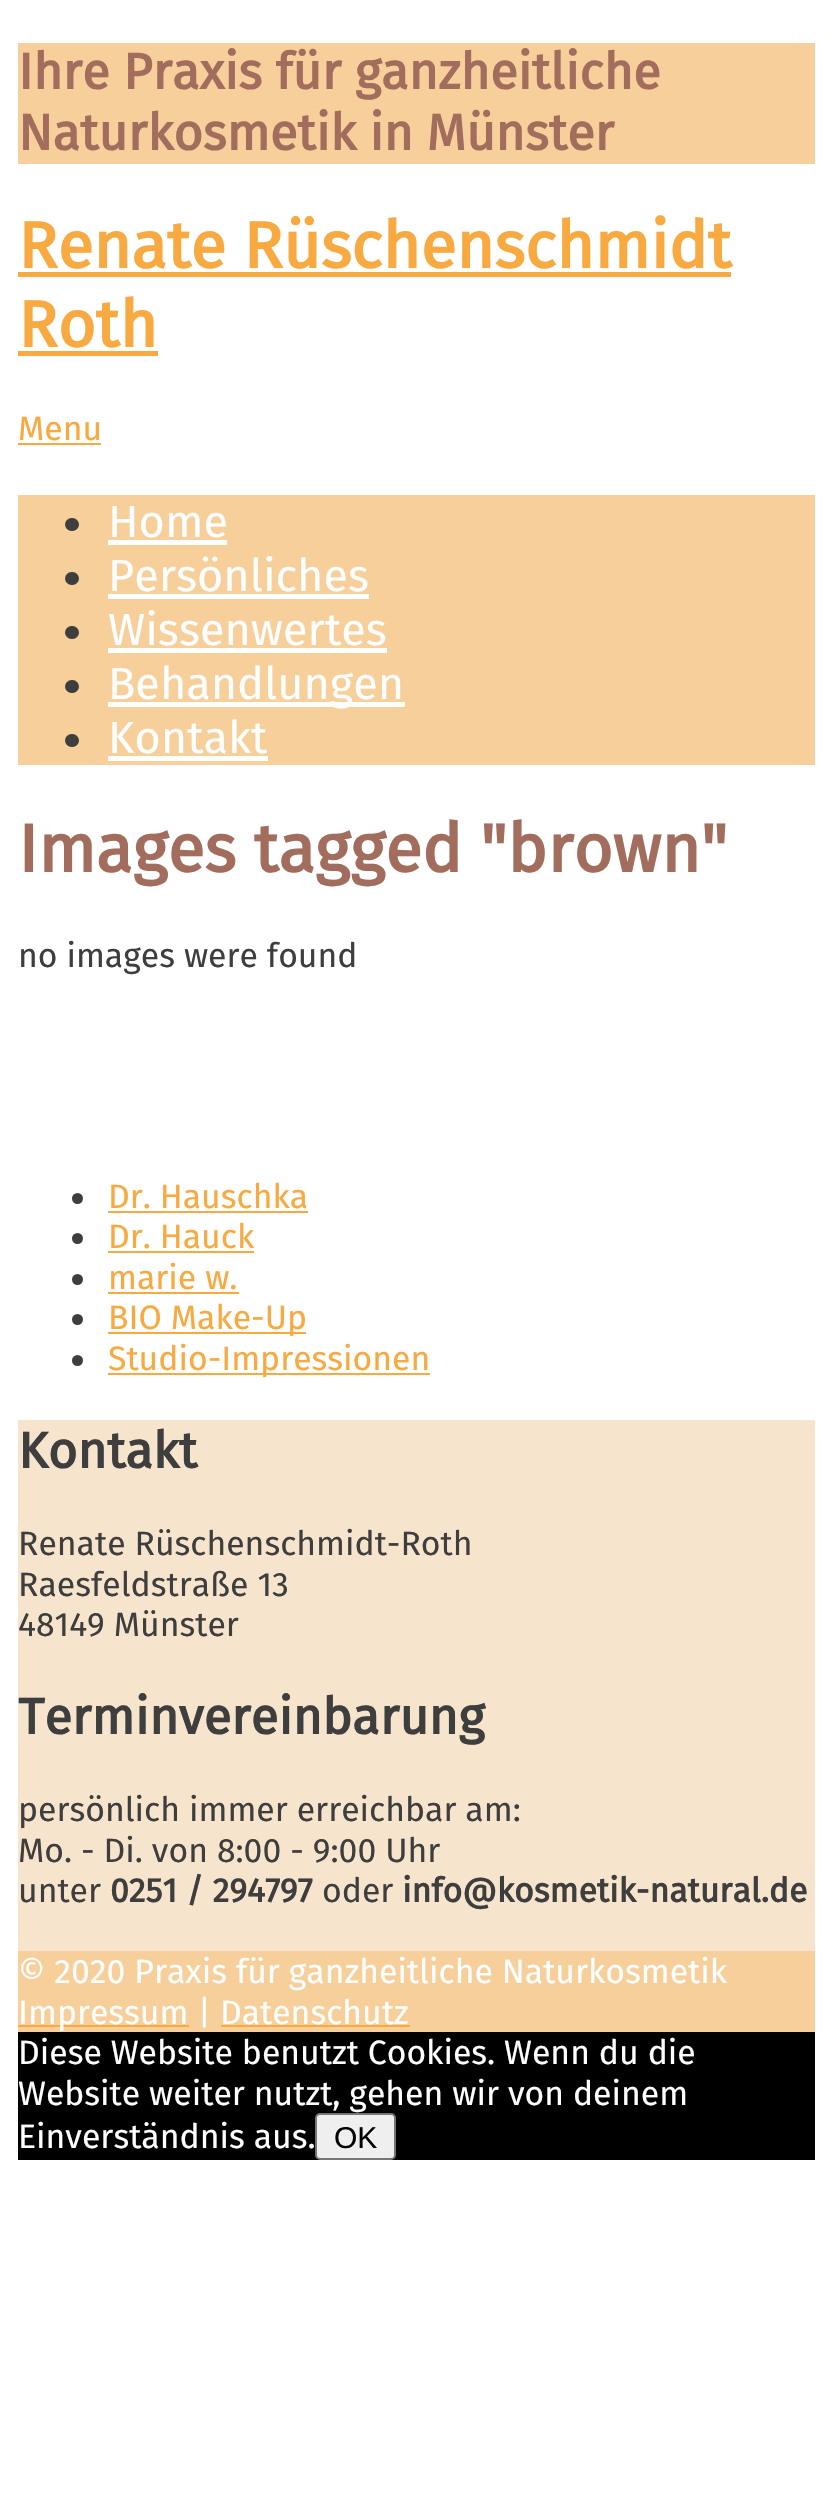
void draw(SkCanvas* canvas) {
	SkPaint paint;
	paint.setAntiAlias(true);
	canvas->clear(0xffffffff);
	paint.setColor(0xfff7cf9b);
	canvas->drawRect(SkRect::MakeXYWH(18, 43, 797, 121), paint);
	SkFont f1(fontMgr->matchFamilyStyle("Fira Sans", SkFontStyle::Bold()), 50.6);
	f1.setSubpixel(true);
	paint.setColor(0xffa36d5e);
	canvas->drawString("Ihre Praxis für ganzheitliche", 18, 89, f1, paint);
	canvas->drawString("Naturkosmetik in Münster", 18, 150, f1, paint);
	SkFont f2(fontMgr->matchFamilyStyle("Fira Sans", SkFontStyle::Bold()), 65.25);
	f2.setSubpixel(true);
	paint.setColor(0xfff8a940);
	canvas->drawString("Renate Rüschenschmidt", 18, 268, f2, paint);
	canvas->drawRect(SkRect::MakeXYWH(18, 272, 713, 5), paint);
	canvas->drawString("Roth", 18, 347, f2, paint);
	canvas->drawRect(SkRect::MakeXYWH(18, 351, 140, 5), paint);
	SkFont f3(fontMgr->matchFamilyStyle("Fira Sans", SkFontStyle::Normal()), 33.75);
	f3.setSubpixel(true);
	canvas->drawString("Menu", 18, 440, f3, paint);
	canvas->drawRect(SkRect::MakeXYWH(18, 443, 83, 2), paint);
	paint.setColor(0xfff7cf9b);
	canvas->drawRect(SkRect::MakeXYWH(18, 495, 797, 270), paint);
	paint.setColor(0xff3e3e3e);
	canvas->drawRoundRect(SkRect::MakeXYWH(65, 518, 14, 13), 6.5, 6.5, paint);
	SkFont f4(fontMgr->matchFamilyStyle("Fira Sans", SkFontStyle::Normal()), 45);
	f4.setSubpixel(true);
	paint.setColor(0xffffffff);
	canvas->drawString("Home", 108, 537, f4, paint);
	canvas->drawRect(SkRect::MakeXYWH(108, 540, 119, 5), paint);
	paint.setColor(0xff3e3e3e);
	canvas->drawRoundRect(SkRect::MakeXYWH(65, 572, 14, 13), 6.5, 6.5, paint);
	paint.setColor(0xffffffff);
	canvas->drawString("Persönliches", 108, 591, f4, paint);
	canvas->drawRect(SkRect::MakeXYWH(108, 594, 261, 5), paint);
	paint.setColor(0xff3e3e3e);
	canvas->drawRoundRect(SkRect::MakeXYWH(65, 626, 14, 13), 6.5, 6.5, paint);
	paint.setColor(0xffffffff);
	canvas->drawString("Wissenwertes", 108, 645, f4, paint);
	canvas->drawRect(SkRect::MakeXYWH(108, 648, 279, 5), paint);
	paint.setColor(0xff3e3e3e);
	canvas->drawRoundRect(SkRect::MakeXYWH(65, 680, 14, 13), 6.5, 6.5, paint);
	paint.setColor(0xffffffff);
	canvas->drawRect(SkRect::MakeXYWH(108, 702, 297, 5), paint);
	canvas->drawString("Behandlungen", 108, 699, f4, paint);
	paint.setColor(0xff3e3e3e);
	canvas->drawRoundRect(SkRect::MakeXYWH(65, 734, 14, 13), 6.5, 6.5, paint);
	paint.setColor(0xffffffff);
	canvas->drawString("Kontakt", 108, 753, f4, paint);
	canvas->drawRect(SkRect::MakeXYWH(108, 756, 160, 5), paint);
	SkFont f5(fontMgr->matchFamilyStyle("Fira Sans", SkFontStyle::Bold()), 67.5);
	f5.setSubpixel(true);
	paint.setColor(0xffa36d5e);
	canvas->drawString("Images tagged \"brown\"", 18, 872, f5, paint);
	paint.setColor(0xff3e3e3e);
	canvas->drawString("no images were found", 18, 967, f3, paint);
	canvas->drawCircle(77.5, 1198.5, 5.5, paint);
	paint.setColor(0xfff8a940);
	canvas->drawString("Dr. Hauschka", 108, 1208, f3, paint);
	canvas->drawRect(SkRect::MakeXYWH(108, 1211, 200, 2), paint);
	paint.setColor(0xff3e3e3e);
	canvas->drawCircle(77.5, 1238.5, 5.5, paint);
	paint.setColor(0xfff8a940);
	canvas->drawString("Dr. Hauck", 108, 1248, f3, paint);
	canvas->drawRect(SkRect::MakeXYWH(108, 1251, 146, 2), paint);
	paint.setColor(0xff3e3e3e);
	canvas->drawCircle(77.5, 1279.5, 5.5, paint);
	paint.setColor(0xfff8a940);
	canvas->drawString("marie w.", 108, 1289, f3, paint);
	canvas->drawRect(SkRect::MakeXYWH(108, 1292, 131, 2), paint);
	paint.setColor(0xff3e3e3e);
	canvas->drawCircle(77.5, 1319.5, 5.5, paint);
	paint.setColor(0xfff8a940);
	canvas->drawRect(SkRect::MakeXYWH(108, 1332, 198, 2), paint);
	canvas->drawString("BIO Make-Up", 108, 1329, f3, paint);
	paint.setColor(0xff3e3e3e);
	canvas->drawCircle(77.5, 1360.5, 5.5, paint);
	paint.setColor(0xfff8a940);
	canvas->drawRect(SkRect::MakeXYWH(108, 1373, 322, 2), paint);
	canvas->drawString("Studio-Impressionen", 108, 1370, f3, paint);
	paint.setColor(0xfff7e4cd);
	canvas->drawRect(SkRect::MakeXYWH(18, 1420, 797, 531), paint);
	paint.setColor(0xff3e3e3e);
	canvas->drawString("Kontakt", 18, 1468, f1, paint);
	canvas->drawString("Renate Rüschenschmidt-Roth", 18, 1555, f3, paint);
	canvas->drawString("Raesfeldstraße 13", 18, 1596, f3, paint);
	canvas->drawString("48149 Münster", 18, 1636, f3, paint);
	canvas->drawString("Terminvereinbarung", 18, 1734, f1, paint);
	canvas->drawString("persönlich immer erreichbar am:", 18, 1821, f3, paint);
	canvas->drawString("Mo. - Di. von 8:00 - 9:00 Uhr", 18, 1862, f3, paint);
	canvas->drawString("unter", 18, 1902, f3, paint);
	SkFont f6(fontMgr->matchFamilyStyle("Fira Sans", SkFontStyle::Bold()), 33.75);
	f6.setSubpixel(true);
	canvas->drawString("0251 / 294797", 110, 1902, f6, paint);
	canvas->drawString("oder", 322, 1902, f3, paint);
	canvas->drawString("info@kosmetik-natural.de", 402, 1902, f6, paint);
	paint.setColor(0xfff7cf9b);
	canvas->drawRect(SkRect::MakeXYWH(18, 1951, 797, 81), paint);
	paint.setColor(0xffffffff);
	canvas->drawString("© 2020 Praxis für ganzheitliche Naturkosmetik", 18, 1983, f3, paint);
	paint.setColor(0xfff8a940);
	canvas->drawRect(SkRect::MakeXYWH(18, 2025, 171, 2), paint);
	paint.setColor(0xffffffff);
	canvas->drawString("Impressum | Datenschutz", 18, 2024, f3, paint);
	paint.setColor(0xfff8a940);
	canvas->drawRect(SkRect::MakeXYWH(221, 2025, 189, 2), paint);
	paint.setColor(0xff000000);
	canvas->drawRect(SkRect::MakeXYWH(18, 2032, 797, 128), paint);
	paint.setColor(0xffffffff);
	canvas->drawString("Diese Website benutzt Cookies. Wenn du die", 18, 2064, f3, paint);
	canvas->drawString("Website weiter nutzt, gehen wir von deinem", 18, 2105, f3, paint);
	canvas->drawString("Einverständnis aus.", 18, 2148, f3, paint);
	paint.setColor(0xffefefef);
	canvas->drawRoundRect(SkRect::MakeXYWH(316, 2114, 79, 45), 4, 4, paint);
	paint.setStroke(true);
	paint.setStrokeWidth(2);
	paint.setColor(0xff767676);
	canvas->drawRoundRect(SkRect::MakeXYWH(316, 2114, 79, 45), 4, 4, paint);
	SkFont f7(fontMgr->matchFamilyStyle("Liberation Sans", SkFontStyle::Normal()), 30);
	f7.setSubpixel(true);
	paint.setStroke(false);
	paint.setColor(0xff000000);
	canvas->drawString("OK", 334, 2148, f7, paint);
}
